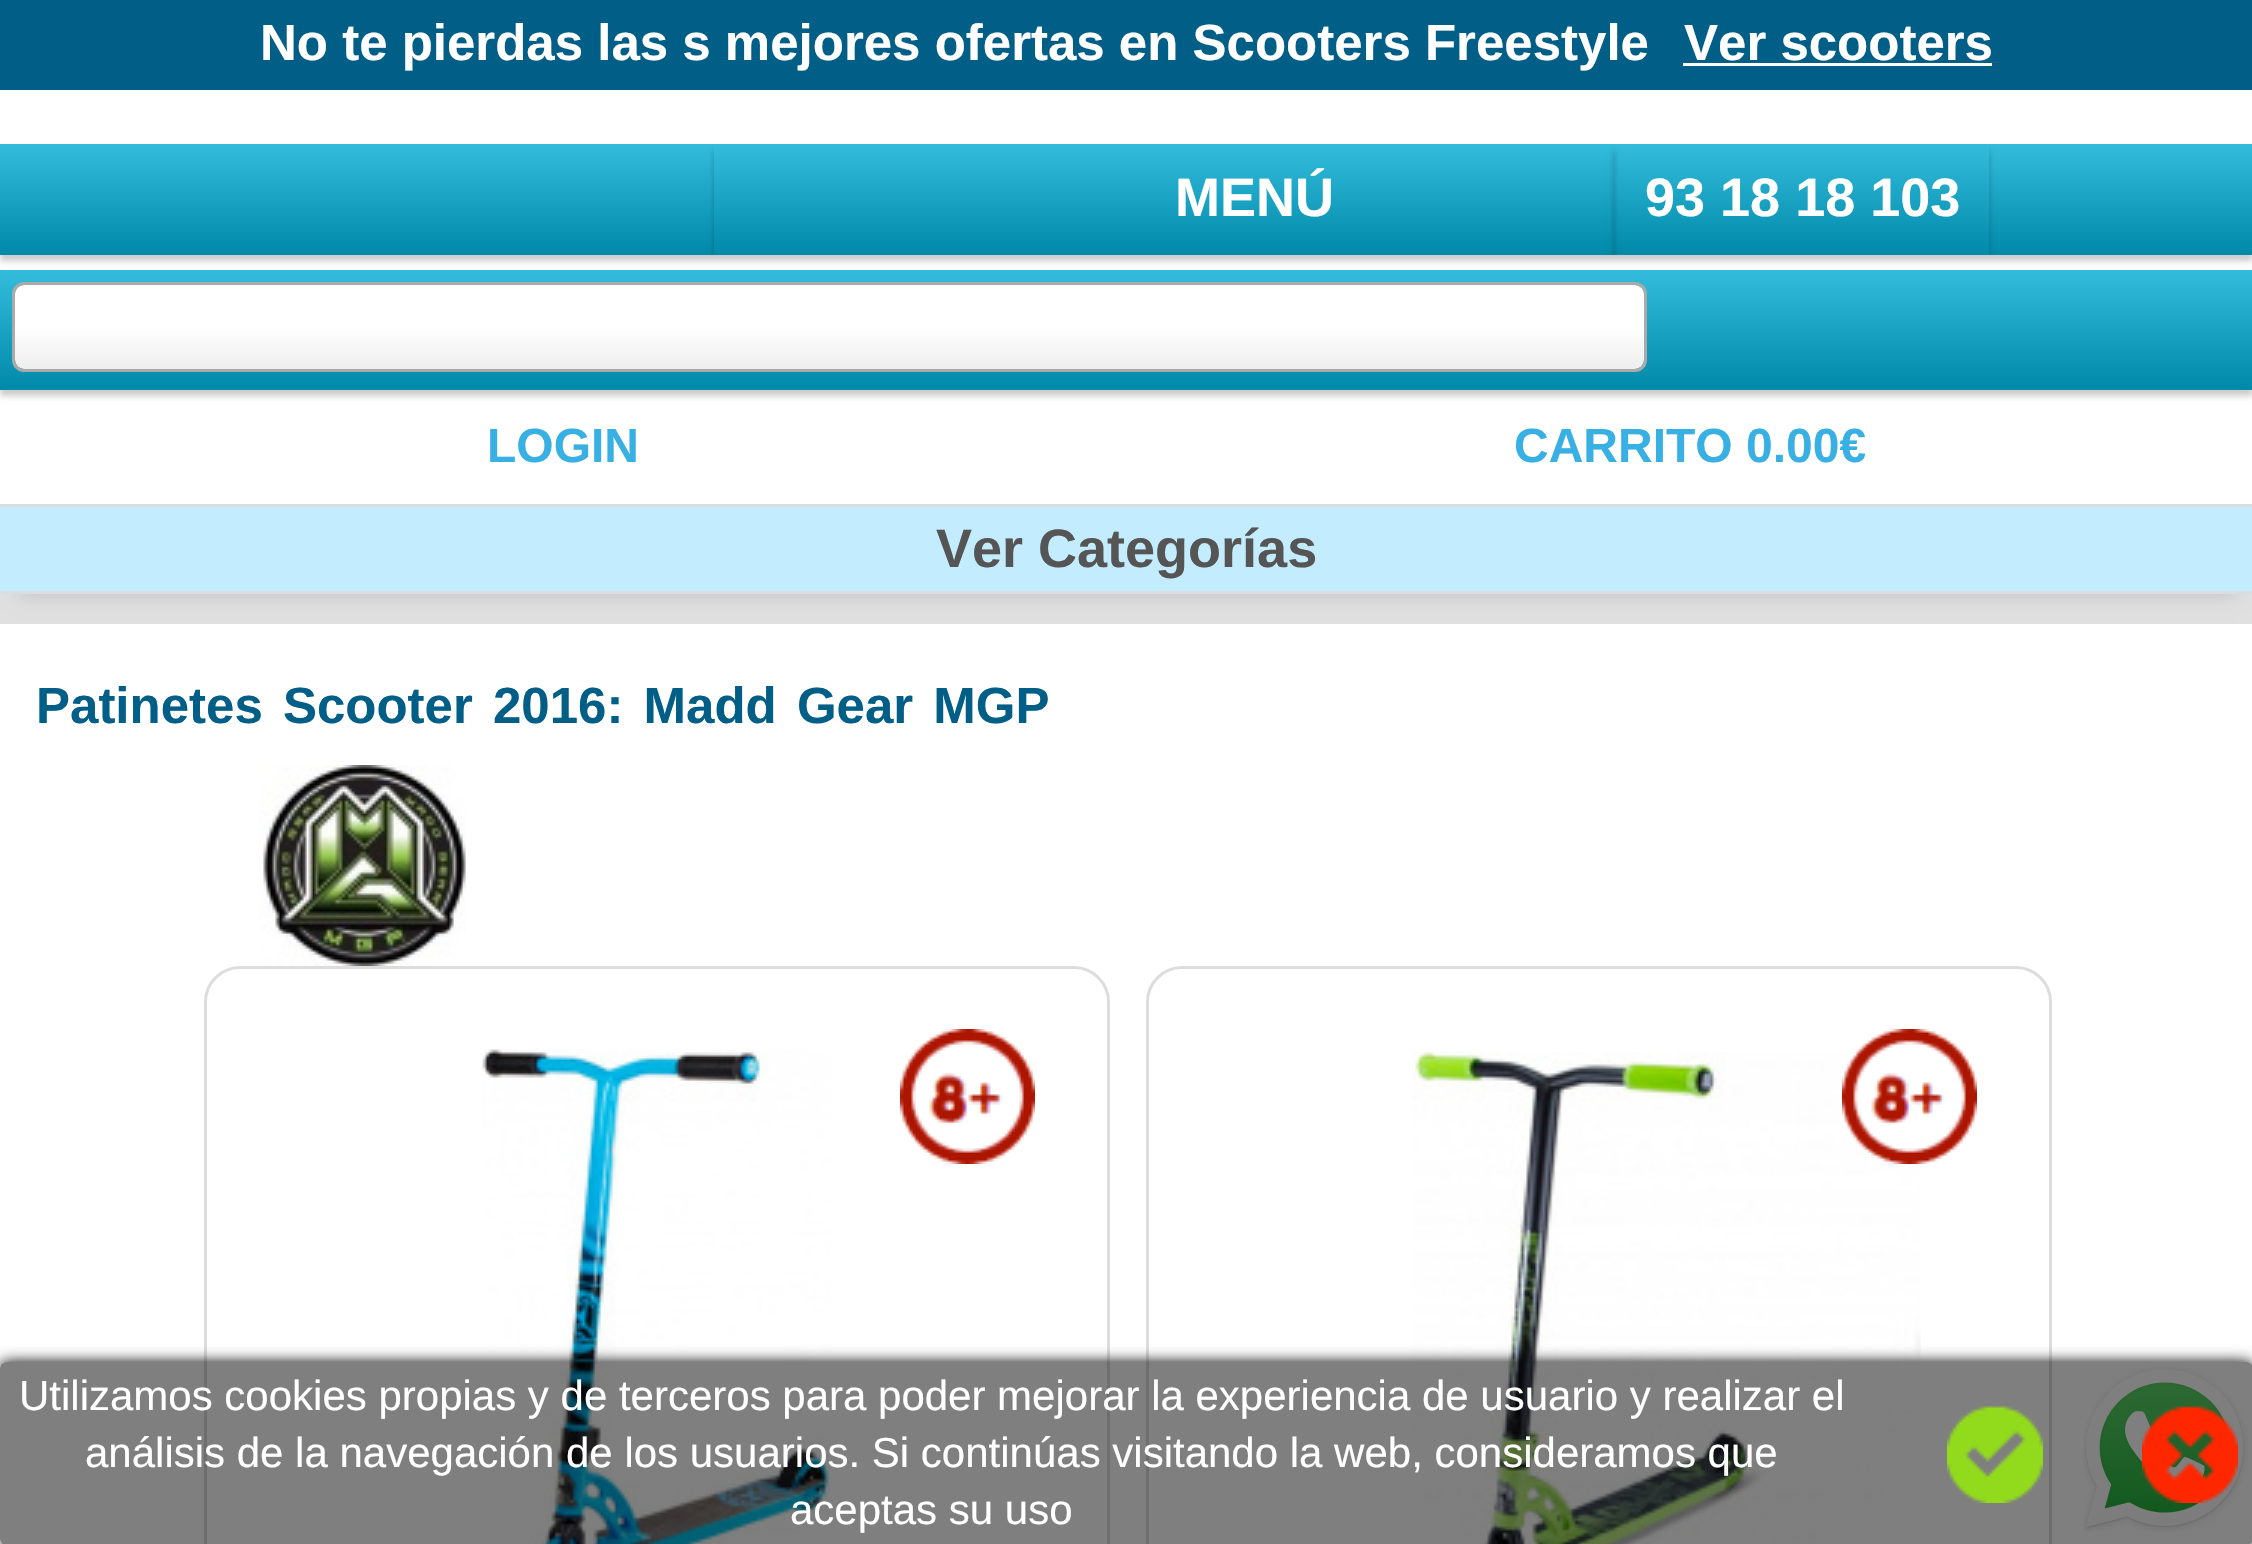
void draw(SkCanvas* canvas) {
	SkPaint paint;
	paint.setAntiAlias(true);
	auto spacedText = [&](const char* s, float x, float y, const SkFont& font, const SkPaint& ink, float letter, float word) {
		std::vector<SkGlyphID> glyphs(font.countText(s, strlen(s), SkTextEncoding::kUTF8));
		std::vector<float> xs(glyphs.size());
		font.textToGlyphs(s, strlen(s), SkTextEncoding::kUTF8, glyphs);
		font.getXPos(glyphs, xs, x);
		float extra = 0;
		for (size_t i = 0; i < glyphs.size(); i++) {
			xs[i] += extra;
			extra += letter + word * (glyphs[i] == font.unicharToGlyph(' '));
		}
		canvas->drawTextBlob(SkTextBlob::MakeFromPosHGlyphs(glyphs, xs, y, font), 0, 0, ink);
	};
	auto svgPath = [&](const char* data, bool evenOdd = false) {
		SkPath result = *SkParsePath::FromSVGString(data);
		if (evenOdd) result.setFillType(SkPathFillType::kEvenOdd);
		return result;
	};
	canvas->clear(0xff005e87);
	SkFont f1(fontMgr->matchFamilyStyle("Liberation Sans", SkFontStyle::Bold()), 51);
	f1.setSubpixel(true);
	paint.setColor(0xffffffff);
	canvas->drawString("No te pierdas las s mejores ofertas en Scooters Freestyle", 260, 60, f1, paint);
	canvas->drawString("Ver scooters", 1684, 60, f1, paint);
	canvas->drawRect(SkRect::MakeXYWH(1683, 63, 309, 3), paint);
	paint.setColor(0xffe0e0e0);
	canvas->drawRect(SkRect::MakeXYWH(0, 594, 2252, 30), paint);
	paint.setColor(0xffffffff);
	canvas->drawRect(SkRect::MakeXYWH(0, 90, 2252, 54), paint);
	paint.setColor(0xffc0bcbc);
	paint.setMaskFilter(SkMaskFilter::MakeBlur(kNormal_SkBlurStyle, 9));
	canvas->drawRect(SkRect::MakeXYWH(18, 180, 2217, 414), paint);
	paint.setMaskFilter(nullptr);
	paint.setColor(0xffffffff);
	canvas->drawRect(SkRect::MakeXYWH(0, 255, 2252, 249), paint);
	paint.setColor(0x33000000);
	paint.setMaskFilter(SkMaskFilter::MakeBlur(kNormal_SkBlurStyle, 3));
	canvas->drawRect(SkRect::MakeXYWH(0, 276, 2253, 120), paint);
	paint.setMaskFilter(nullptr);
	{
		const SkColor colors[] = {0xff33bcdc, 0xff0089a9};
		const float stops[] = {0, 1};
		const SkPoint ends[] = {{1127, 270}, {1127, 390}};
		paint.setShader(SkGradientShader::MakeLinear(ends, colors, stops, 2, SkTileMode::kClamp));
		paint.setAlpha(255);
	}
	canvas->drawRect(SkRect::MakeXYWH(0, 270, 2252, 120), paint);
	paint.setShader(nullptr);
	paint.setColor(0x33000000);
	paint.setMaskFilter(SkMaskFilter::MakeBlur(kNormal_SkBlurStyle, 3));
	canvas->drawRect(SkRect::MakeXYWH(0, 150, 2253, 111), paint);
	paint.setMaskFilter(nullptr);
	{
		const SkColor colors[] = {0xff33bcdc, 0xff0089a9};
		const float stops[] = {0, 1};
		const SkPoint ends[] = {{1127, 144}, {1127, 255}};
		paint.setShader(SkGradientShader::MakeLinear(ends, colors, stops, 2, SkTileMode::kClamp));
		paint.setAlpha(255);
	}
	canvas->drawRect(SkRect::MakeXYWH(0, 144, 2252, 111), paint);
	canvas->save();
	canvas->clipRect(SkRect::MakeXYWH(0, 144, 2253, 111));
	canvas->clipPath(svgPath("M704 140H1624V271H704ZM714 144H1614V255H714Z", true), true);
	paint.setShader(nullptr);
	paint.setColor(0x33000000);
	paint.setMaskFilter(SkMaskFilter::MakeBlur(kNormal_SkBlurStyle, 3));
	canvas->drawRect(SkRect::MakeXYWH(714, 150, 900, 111), paint);
	paint.setMaskFilter(nullptr);
	canvas->restore();
	SkFont f2(fontMgr->matchFamilyStyle("Liberation Sans", SkFontStyle::Bold()), 54);
	f2.setSubpixel(true);
	paint.setColor(0xffffffff);
	canvas->drawString("MENÚ", 1175, 216, f2, paint);
	canvas->save();
	canvas->clipRect(SkRect::MakeXYWH(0, 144, 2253, 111));
	canvas->clipPath(svgPath("M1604 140H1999V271H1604ZM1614 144H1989V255H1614Z", true), true);
	paint.setColor(0x33000000);
	paint.setMaskFilter(SkMaskFilter::MakeBlur(kNormal_SkBlurStyle, 3));
	canvas->drawRect(SkRect::MakeXYWH(1614, 150, 375, 111), paint);
	paint.setMaskFilter(nullptr);
	canvas->restore();
	paint.setColor(0xffffffff);
	canvas->drawString("93 18 18 103", 1645, 216, f2, paint);
	{
		const SkColor colors[] = {0xffeeeeee, 0xffffffff};
		const float stops[] = {0, 0.5};
		const SkPoint ends[] = {{15, 369}, {15, 285}};
		paint.setShader(SkGradientShader::MakeLinear(ends, colors, stops, 2, SkTileMode::kClamp));
		paint.setAlpha(255);
	}
	canvas->drawRoundRect(SkRect::MakeXYWH(15, 285, 1629, 84), 9, 9, paint);
	paint.setStroke(true);
	paint.setStrokeWidth(3);
	paint.setShader(nullptr);
	paint.setColor(0xffaaaaaa);
	canvas->drawRoundRect(SkRect::MakeXYWH(13.5, 283.5, 1632, 87), 10.5, 10.5, paint);
	SkFont f3(fontMgr->matchFamilyStyle("Liberation Sans", SkFontStyle::Bold()), 48);
	f3.setSubpixel(true);
	paint.setStroke(false);
	paint.setColor(0xff38b0e3);
	canvas->drawString("LOGIN", 487, 462, f3, paint);
	canvas->drawString("CARRITO 0.00€", 1514, 462, f3, paint);
	paint.setColor(0xffc3edff);
	canvas->drawRect(SkRect::MakeXYWH(0, 507, 2252, 84), paint);
	paint.setColor(0xffdbdee1);
	canvas->drawRect(SkRect::MakeXYWH(0, 504, 2252, 3), paint);
	canvas->drawRect(SkRect::MakeXYWH(0, 591, 2252, 3), paint);
	paint.setColor(0xff555555);
	canvas->drawString("Ver Categorías", 936, 567, f2, paint);
	paint.setColor(0xffffffff);
	canvas->drawRect(SkRect::MakeXYWH(0, 624, 2252, 920), paint);
	paint.setColor(0xff005e87);
	spacedText("Patinetes Scooter 2016: Madd Gear MGP", 36, 723, f1, paint, 0, 6);
	canvas->drawImageRect(SkImages::DeferredFromEncodedData(SkData::MakeFromFileName("img1.png")), SkRect::MakeXYWH(259, 765, 207, 201), SkSamplingOptions());
	paint.setStroke(true);
	paint.setColor(0xffdddddd);
	canvas->drawRoundRect(SkRect::MakeXYWH(205.5, 967.5, 903, 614), 34.5, 34.5, paint);
	canvas->drawImageRect(SkImages::DeferredFromEncodedData(SkData::MakeFromFileName("img2.png")), SkRect::MakeXYWH(482, 1049, 349, 495), SkSamplingOptions());
	canvas->drawImageRect(SkImages::DeferredFromEncodedData(SkData::MakeFromFileName("img3.png")), SkRect::MakeXYWH(900, 1029, 135, 135), SkSamplingOptions());
	canvas->drawRoundRect(SkRect::MakeXYWH(1147.5, 967.5, 903, 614), 34.5, 34.5, paint);
	canvas->drawImageRect(SkImages::DeferredFromEncodedData(SkData::MakeFromFileName("img5.png")), SkRect::MakeXYWH(1412, 1052, 509, 492), SkSamplingOptions());
	canvas->drawImageRect(SkImages::DeferredFromEncodedData(SkData::MakeFromFileName("img4.png")), SkRect::MakeXYWH(1842, 1029, 135, 135), SkSamplingOptions());
	canvas->drawImageRect(SkImages::DeferredFromEncodedData(SkData::MakeFromFileName("img8.png")), SkRect::MakeXYWH(2083, 1367, 165, 165), SkSamplingOptions());
	canvas->save();
	canvas->clipPath(svgPath("M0 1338H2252V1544H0ZM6 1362H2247C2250.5 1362 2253 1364.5 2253 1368V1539C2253 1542.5 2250.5 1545 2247 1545H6C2.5 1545 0 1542.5 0 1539V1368C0 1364.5 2.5 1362 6 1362Z", true), true);
	paint.setStroke(false);
	paint.setColor(0xff000000);
	paint.setMaskFilter(SkMaskFilter::MakeBlur(kNormal_SkBlurStyle, 7.5));
	canvas->drawRoundRect(SkRect::MakeXYWH(0, 1362, 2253, 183), 6, 6, paint);
	paint.setMaskFilter(nullptr);
	canvas->restore();
	paint.setColor(0x80000000);
	canvas->drawRoundRect(SkRect::MakeXYWH(0, 1362, 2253, 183), 6, 6, paint);
	SkFont f4(fontMgr->matchFamilyStyle("Liberation Sans", SkFontStyle::Normal()), 42);
	f4.setSubpixel(true);
	paint.setColor(0xffffffff);
	canvas->drawString("Utilizamos cookies propias y de terceros para poder mejorar la experiencia de usuario y realizar el", 19, 1410, f4, paint);
	canvas->drawString("análisis de la navegación de los usuarios. Si continúas visitando la web, consideramos que", 85, 1467, f4, paint);
	canvas->drawString("aceptas su uso", 790, 1524, f4, paint);
	canvas->drawImageRect(SkImages::DeferredFromEncodedData(SkData::MakeFromFileName("img6.png")), SkRect::MakeXYWH(1947, 1406, 96, 97), SkSamplingOptions());
	canvas->drawImageRect(SkImages::DeferredFromEncodedData(SkData::MakeFromFileName("img7.png")), SkRect::MakeXYWH(2142, 1406, 96, 97), SkSamplingOptions());
}
